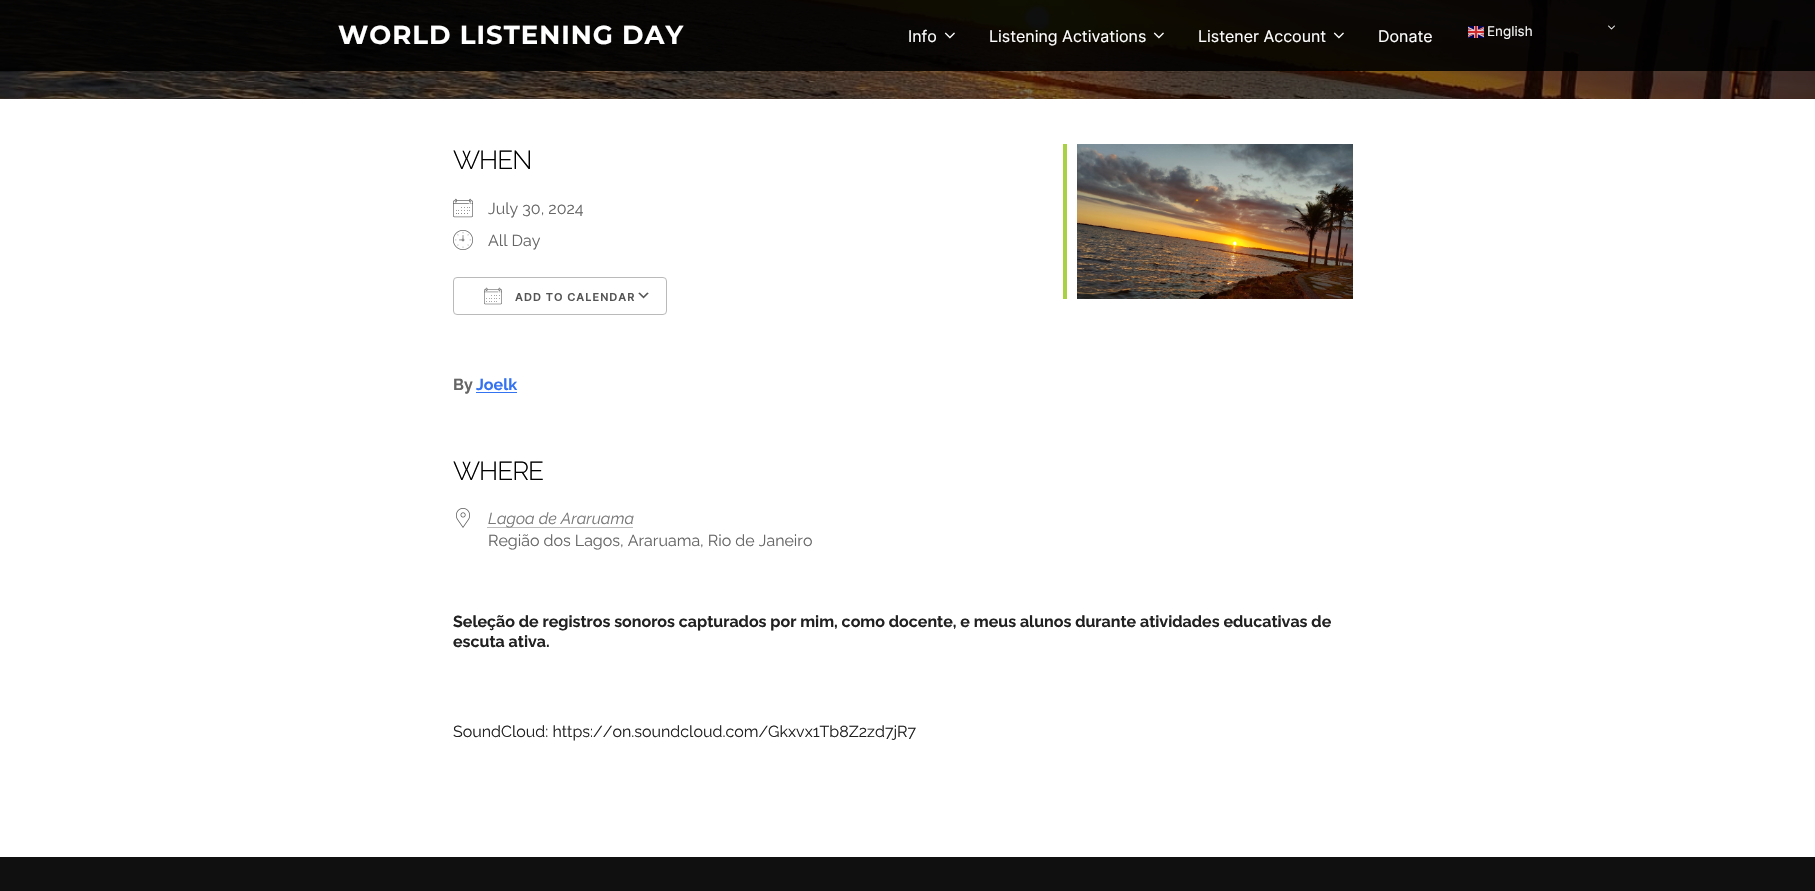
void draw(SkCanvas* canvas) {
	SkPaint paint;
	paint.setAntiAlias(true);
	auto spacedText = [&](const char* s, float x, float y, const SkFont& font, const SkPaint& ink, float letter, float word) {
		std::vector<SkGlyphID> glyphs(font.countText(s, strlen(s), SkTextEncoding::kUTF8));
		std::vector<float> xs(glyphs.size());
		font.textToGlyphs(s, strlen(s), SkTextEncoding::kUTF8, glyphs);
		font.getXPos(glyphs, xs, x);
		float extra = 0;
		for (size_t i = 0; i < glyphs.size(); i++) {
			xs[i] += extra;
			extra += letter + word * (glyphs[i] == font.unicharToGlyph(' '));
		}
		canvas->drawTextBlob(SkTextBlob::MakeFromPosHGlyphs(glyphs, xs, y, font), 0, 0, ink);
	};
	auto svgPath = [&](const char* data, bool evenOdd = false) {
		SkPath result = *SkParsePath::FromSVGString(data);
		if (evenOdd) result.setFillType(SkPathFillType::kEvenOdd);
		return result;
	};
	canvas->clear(0xffffffff);
	canvas->drawImageRect(SkImages::DeferredFromEncodedData(SkData::MakeFromFileName("img6.png")), SkRect::MakeXYWH(0, 0, 1815, 99), SkSamplingOptions());
	paint.setColor(0xe6000000);
	canvas->drawRect(SkRect::MakeXYWH(0, 0, 1815, 71), paint);
	SkFont f1(fontMgr->matchFamilyStyle("Montserrat", SkFontStyle(100, SkFontStyle::kNormal_Width, SkFontStyle::kUpright_Slant)), 26);
	f1.setSubpixel(true);
	paint.setColor(0xffffffff);
	spacedText("WORLD LISTENING DAY", 338, 44, f1, paint, 1, 0);
	SkFont f2(fontMgr->matchFamilyStyle("Inter", SkFontStyle::Normal()), 16);
	f2.setSubpixel(true);
	canvas->drawString("Info", 908, 42, f2, paint);
	canvas->drawImageRect(SkImages::DeferredFromEncodedData(SkData::MakeFromFileName("img1.png")), SkRect::MakeXYWH(944, 32, 11, 7), SkSamplingOptions());
	canvas->drawString("Listening Activations", 989, 42, f2, paint);
	canvas->drawImageRect(SkImages::DeferredFromEncodedData(SkData::MakeFromFileName("img2.png")), SkRect::MakeXYWH(1153, 32, 11, 7), SkSamplingOptions());
	canvas->drawString("Listener Account", 1198, 42, f2, paint);
	canvas->drawImageRect(SkImages::DeferredFromEncodedData(SkData::MakeFromFileName("img3.png")), SkRect::MakeXYWH(1333, 32, 11, 7), SkSamplingOptions());
	canvas->drawString("Donate", 1378, 42, f2, paint);
	canvas->drawImageRect(SkImages::DeferredFromEncodedData(SkData::MakeFromFileName("img4.png")), SkRect::MakeXYWH(1468, 26, 16, 12), SkSamplingOptions());
	SkFont f3(fontMgr->matchFamilyStyle("Inter", SkFontStyle::Normal()), 13.5);
	f3.setSubpixel(true);
	paint.setColor(0xfff7f7f7);
	canvas->drawString("English", 1487, 36, f3, paint);
	canvas->drawImageRect(SkImages::DeferredFromEncodedData(SkData::MakeFromFileName("img5.png")), SkRect::MakeXYWH(1608, 25, 7, 5), SkSamplingOptions());
	SkFont f4(fontMgr->matchFamilyStyle("Raleway", SkFontStyle(300, SkFontStyle::kNormal_Width, SkFontStyle::kUpright_Slant)), 26);
	f4.setSubpixel(true);
	paint.setColor(0xff000000);
	spacedText("WHEN", 453, 169, f4, paint, -1, 0);
	canvas->drawImageRect(SkImages::DeferredFromEncodedData(SkData::MakeFromFileName("img7.png")), SkRect::MakeXYWH(453, 198, 20, 20), SkSamplingOptions());
	SkFont f5(fontMgr->matchFamilyStyle("Raleway", SkFontStyle::Normal()), 16);
	f5.setSubpixel(true);
	paint.setColor(0xff666666);
	canvas->drawString("July 30, 2024", 488, 214, f5, paint);
	canvas->drawImageRect(SkImages::DeferredFromEncodedData(SkData::MakeFromFileName("img8.png")), SkRect::MakeXYWH(453, 230, 20, 20), SkSamplingOptions());
	canvas->drawString("All Day", 488, 246, f5, paint);
	canvas->drawImageRect(SkImages::DeferredFromEncodedData(SkData::MakeFromFileName("img9.png")), SkRect::MakeXYWH(638, 292, 11, 7), SkSamplingOptions());
	paint.setStroke(true);
	paint.setStrokeWidth(1);
	paint.setColor(0xffbababa);
	canvas->drawRoundRect(SkRect::MakeXYWH(453.5, 277.5, 213, 37), 3.5, 3.5, paint);
	canvas->drawImageRect(SkImages::DeferredFromEncodedData(SkData::MakeFromFileName("img10.png")), SkRect::MakeXYWH(484, 287, 18, 18), SkSamplingOptions());
	SkFont f6(fontMgr->matchFamilyStyle("Inter", SkFontStyle(600, SkFontStyle::kNormal_Width, SkFontStyle::kUpright_Slant)), 11);
	f6.setSubpixel(true);
	paint.setStroke(false);
	paint.setColor(0xff545454);
	spacedText("ADD TO CALENDAR", 515, 301, f6, paint, 1, 0);
	SkFont f7(fontMgr->matchFamilyStyle("Raleway", SkFontStyle::Bold()), 16);
	f7.setSubpixel(true);
	paint.setColor(0xff666666);
	canvas->drawString("By", 453, 390, f7, paint);
	paint.setColor(0xff3372f0);
	canvas->drawString("Joelk", 476, 390, f7, paint);
	canvas->drawRect(SkRect::MakeXYWH(476, 392, 41, 1), paint);
	paint.setColor(0xff000000);
	spacedText("WHERE", 453, 480, f4, paint, -1, 0);
	canvas->drawImageRect(SkImages::DeferredFromEncodedData(SkData::MakeFromFileName("img11.png")), SkRect::MakeXYWH(456, 508, 14, 20), SkSamplingOptions());
	paint.setStroke(true);
	paint.setColor(0xff787878);
	paint.setPathEffect(SkDashPathEffect::Make({{1, 1}}, 0));
	canvas->drawPath(svgPath("M487.5 527.5H633.5"), paint);
	paint.setPathEffect(nullptr);
	SkFont f8(fontMgr->matchFamilyStyle("Raleway", SkFontStyle::Italic()), 16);
	f8.setSubpixel(true);
	paint.setStroke(false);
	canvas->drawString("Lagoa de Araruama", 488, 524, f8, paint);
	paint.setColor(0xff666666);
	canvas->drawString("Região dos Lagos, Araruama, Rio de Janeiro", 488, 546, f5, paint);
	paint.setColor(0xffa8d144);
	canvas->drawRect(SkRect::MakeXYWH(1063, 144, 4, 155), paint);
	canvas->drawImageRect(SkImages::DeferredFromEncodedData(SkData::MakeFromFileName("img12.png")), SkRect::MakeXYWH(1077, 144, 276, 155), SkSamplingOptions());
	paint.setColor(0xff212121);
	canvas->drawString("Seleção de registros sonoros capturados por mim, como docente, e meus alunos durante atividades educativas de", 453, 627, f7, paint);
	canvas->drawString("escuta ativa.", 453, 647, f7, paint);
	canvas->drawString("SoundCloud: https://on.soundcloud.com/Gkxvx1Tb8Z2zd7jR7", 453, 737, f5, paint);
	paint.setColor(0xff101010);
	canvas->drawRect(SkRect::MakeXYWH(0, 857, 1815, 34), paint);
}
